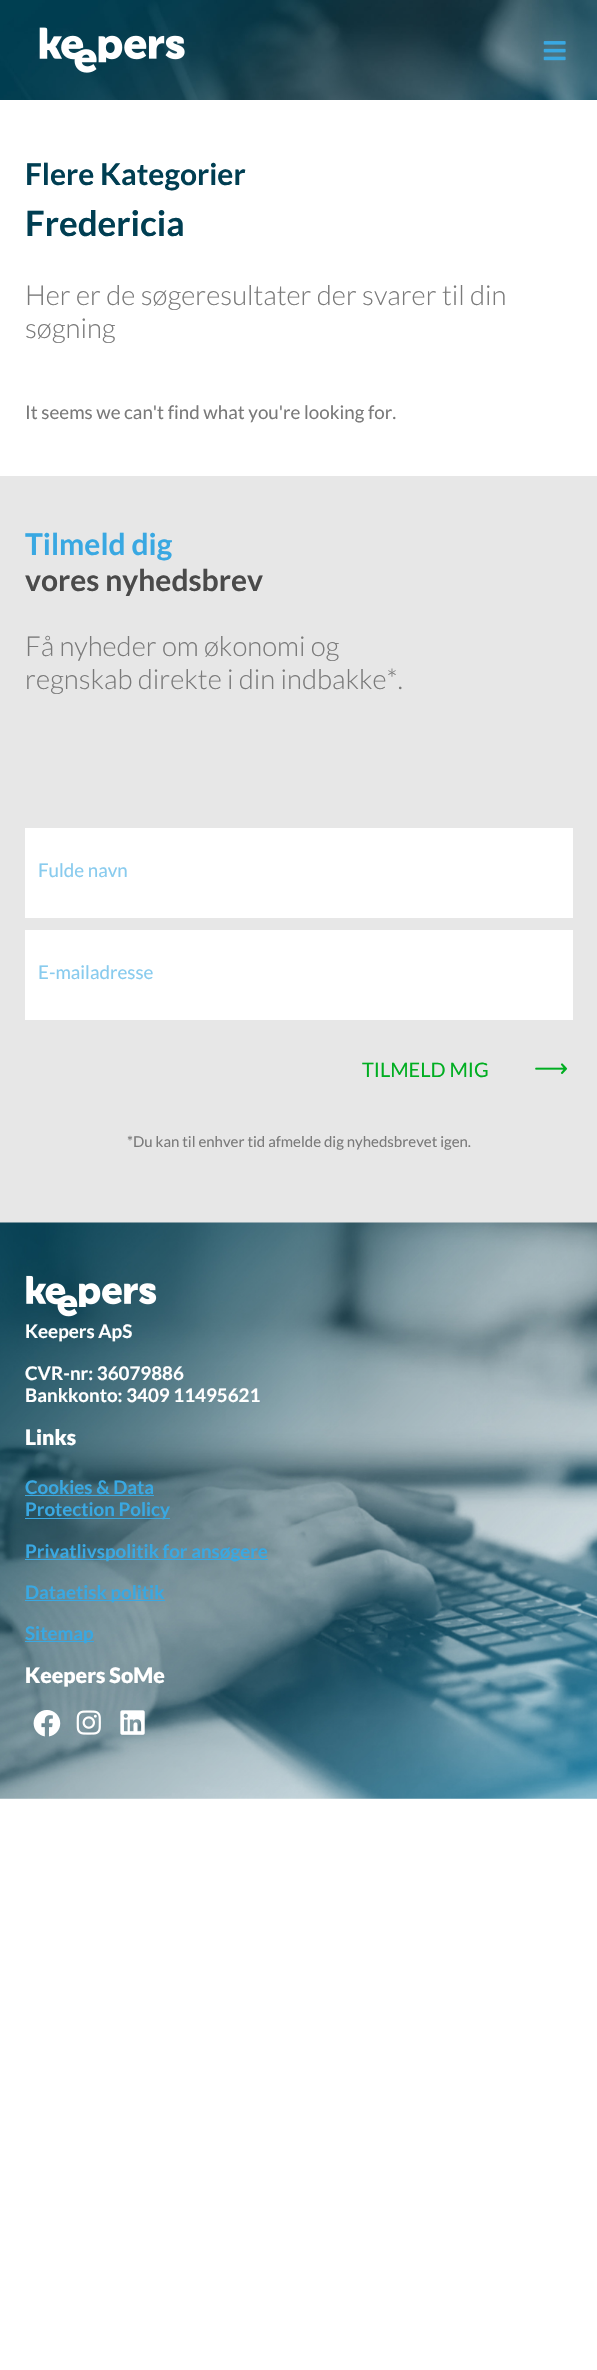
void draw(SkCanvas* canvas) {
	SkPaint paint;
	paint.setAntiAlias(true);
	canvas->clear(0xffffffff);
	canvas->drawImageRect(SkImages::DeferredFromEncodedData(SkData::MakeFromFileName("img1.png")), SkRect::MakeXYWH(0, 0, 597, 100), SkSamplingOptions());
	canvas->drawImageRect(SkImages::DeferredFromEncodedData(SkData::MakeFromFileName("img2.png")), SkRect::MakeXYWH(39, 27, 146, 46), SkSamplingOptions());
	canvas->drawImageRect(SkImages::DeferredFromEncodedData(SkData::MakeFromFileName("img3.png")), SkRect::MakeXYWH(543, 41, 23, 20), SkSamplingOptions());
	SkFont f1(fontMgr->matchFamilyStyle("Lato", SkFontStyle::Bold()), 30);
	f1.setSubpixel(true);
	paint.setColor(0xff003e52);
	canvas->drawString("Flere Kategorier", 25, 185, f1, paint);
	SkFont f2(fontMgr->matchFamilyStyle("Lato", SkFontStyle::Bold()), 35);
	f2.setSubpixel(true);
	canvas->drawString("Fredericia", 25, 236, f2, paint);
	SkFont f3(fontMgr->matchFamilyStyle("Lato", SkFontStyle(300, SkFontStyle::kNormal_Width, SkFontStyle::kUpright_Slant)), 27.5);
	f3.setSubpixel(true);
	paint.setColor(0xff7a7a7a);
	canvas->drawString("Her er de søgeresultater der svarer til din", 25, 305, f3, paint);
	canvas->drawString("søgning", 25, 338, f3, paint);
	SkFont f4(fontMgr->matchFamilyStyle("Lato", SkFontStyle::Normal()), 18.75);
	f4.setSubpixel(true);
	canvas->drawString("It seems we can't find what you're looking for.", 25, 419, f4, paint);
	paint.setColor(0xffe7e7e7);
	canvas->drawRect(SkRect::MakeXYWH(0, 476, 597, 747), paint);
	paint.setColor(0xff39a8e2);
	canvas->drawString("Tilmeld dig", 25, 555, f1, paint);
	paint.setColor(0xff4a4a4a);
	canvas->drawString("vores nyhedsbrev", 25, 591, f1, paint);
	paint.setColor(0xff7a7a7a);
	canvas->drawString("Få nyheder om økonomi og", 25, 656, f3, paint);
	canvas->drawString("regnskab direkte i din indbakke*.", 25, 689, f3, paint);
	paint.setColor(0xffffffff);
	canvas->drawRect(SkRect::MakeXYWH(25, 828, 548, 90), paint);
	paint.setColor(0xff88cbee);
	canvas->drawString("Fulde navn", 38, 877, f4, paint);
	paint.setColor(0xffffffff);
	canvas->drawRect(SkRect::MakeXYWH(25, 930, 548, 90), paint);
	paint.setColor(0xff88cbee);
	canvas->drawString("E-mailadresse", 38, 979, f4, paint);
	SkFont f5(fontMgr->matchFamilyStyle("Lato", SkFontStyle::Normal()), 20);
	f5.setSubpixel(true);
	paint.setColor(0xff00ae21);
	canvas->drawString("TILMELD MIG", 362, 1077, f5, paint);
	canvas->drawImageRect(SkImages::DeferredFromEncodedData(SkData::MakeFromFileName("img4.png")), SkRect::MakeXYWH(535, 1063, 33, 11), SkSamplingOptions());
	SkFont f6(fontMgr->matchFamilyStyle("Lato", SkFontStyle::Normal()), 15);
	f6.setSubpixel(true);
	paint.setColor(0xff7a7a7a);
	canvas->drawString("*Du kan til enhver tid afmelde dig nyhedsbrevet igen.", 127, 1147, f6, paint);
	canvas->drawImageRect(SkImages::DeferredFromEncodedData(SkData::MakeFromFileName("img5.png")), SkRect::MakeXYWH(0, 1222, 597, 577), SkSamplingOptions());
	canvas->drawImageRect(SkImages::DeferredFromEncodedData(SkData::MakeFromFileName("img6.png")), SkRect::MakeXYWH(26, 1275, 131, 42), SkSamplingOptions());
	SkFont f7(fontMgr->matchFamilyStyle("Lato", SkFontStyle::Bold()), 18.75);
	f7.setSubpixel(true);
	paint.setColor(0xffffffff);
	canvas->drawString("Keepers ApS", 25, 1338, f7, paint);
	canvas->drawString("CVR-nr: 36079886", 25, 1380, f7, paint);
	canvas->drawString("Bankkonto: 3409 11495621", 25, 1402, f7, paint);
	SkFont f8(fontMgr->matchFamilyStyle("Lato", SkFontStyle(900, SkFontStyle::kNormal_Width, SkFontStyle::kUpright_Slant)), 21.25);
	f8.setSubpixel(true);
	canvas->drawString("Links", 25, 1445, f8, paint);
	paint.setColor(0xff39a8e2);
	canvas->drawString("Cookies & Data", 25, 1494, f7, paint);
	canvas->drawRect(SkRect::MakeXYWH(25, 1495, 129, 1), paint);
	canvas->drawRect(SkRect::MakeXYWH(25, 1518, 145, 1), paint);
	canvas->drawString("Protection Policy", 25, 1516, f7, paint);
	canvas->drawRect(SkRect::MakeXYWH(25, 1559, 243, 1), paint);
	canvas->drawString("Privatlivspolitik for ansøgere", 25, 1558, f7, paint);
	canvas->drawRect(SkRect::MakeXYWH(25, 1600, 140, 1), paint);
	canvas->drawString("Dataetisk politik", 25, 1599, f7, paint);
	canvas->drawRect(SkRect::MakeXYWH(25, 1641, 69, 1), paint);
	canvas->drawString("Sitemap", 25, 1640, f7, paint);
	paint.setColor(0xffffffff);
	canvas->drawString("Keepers SoMe", 25, 1683, f8, paint);
	canvas->drawImageRect(SkImages::DeferredFromEncodedData(SkData::MakeFromFileName("img7.png")), SkRect::MakeXYWH(33, 1710, 28, 27), SkSamplingOptions());
	canvas->drawImageRect(SkImages::DeferredFromEncodedData(SkData::MakeFromFileName("img8.png")), SkRect::MakeXYWH(76, 1710, 25, 25), SkSamplingOptions());
	canvas->drawImageRect(SkImages::DeferredFromEncodedData(SkData::MakeFromFileName("img9.png")), SkRect::MakeXYWH(120, 1710, 25, 25), SkSamplingOptions());
}
